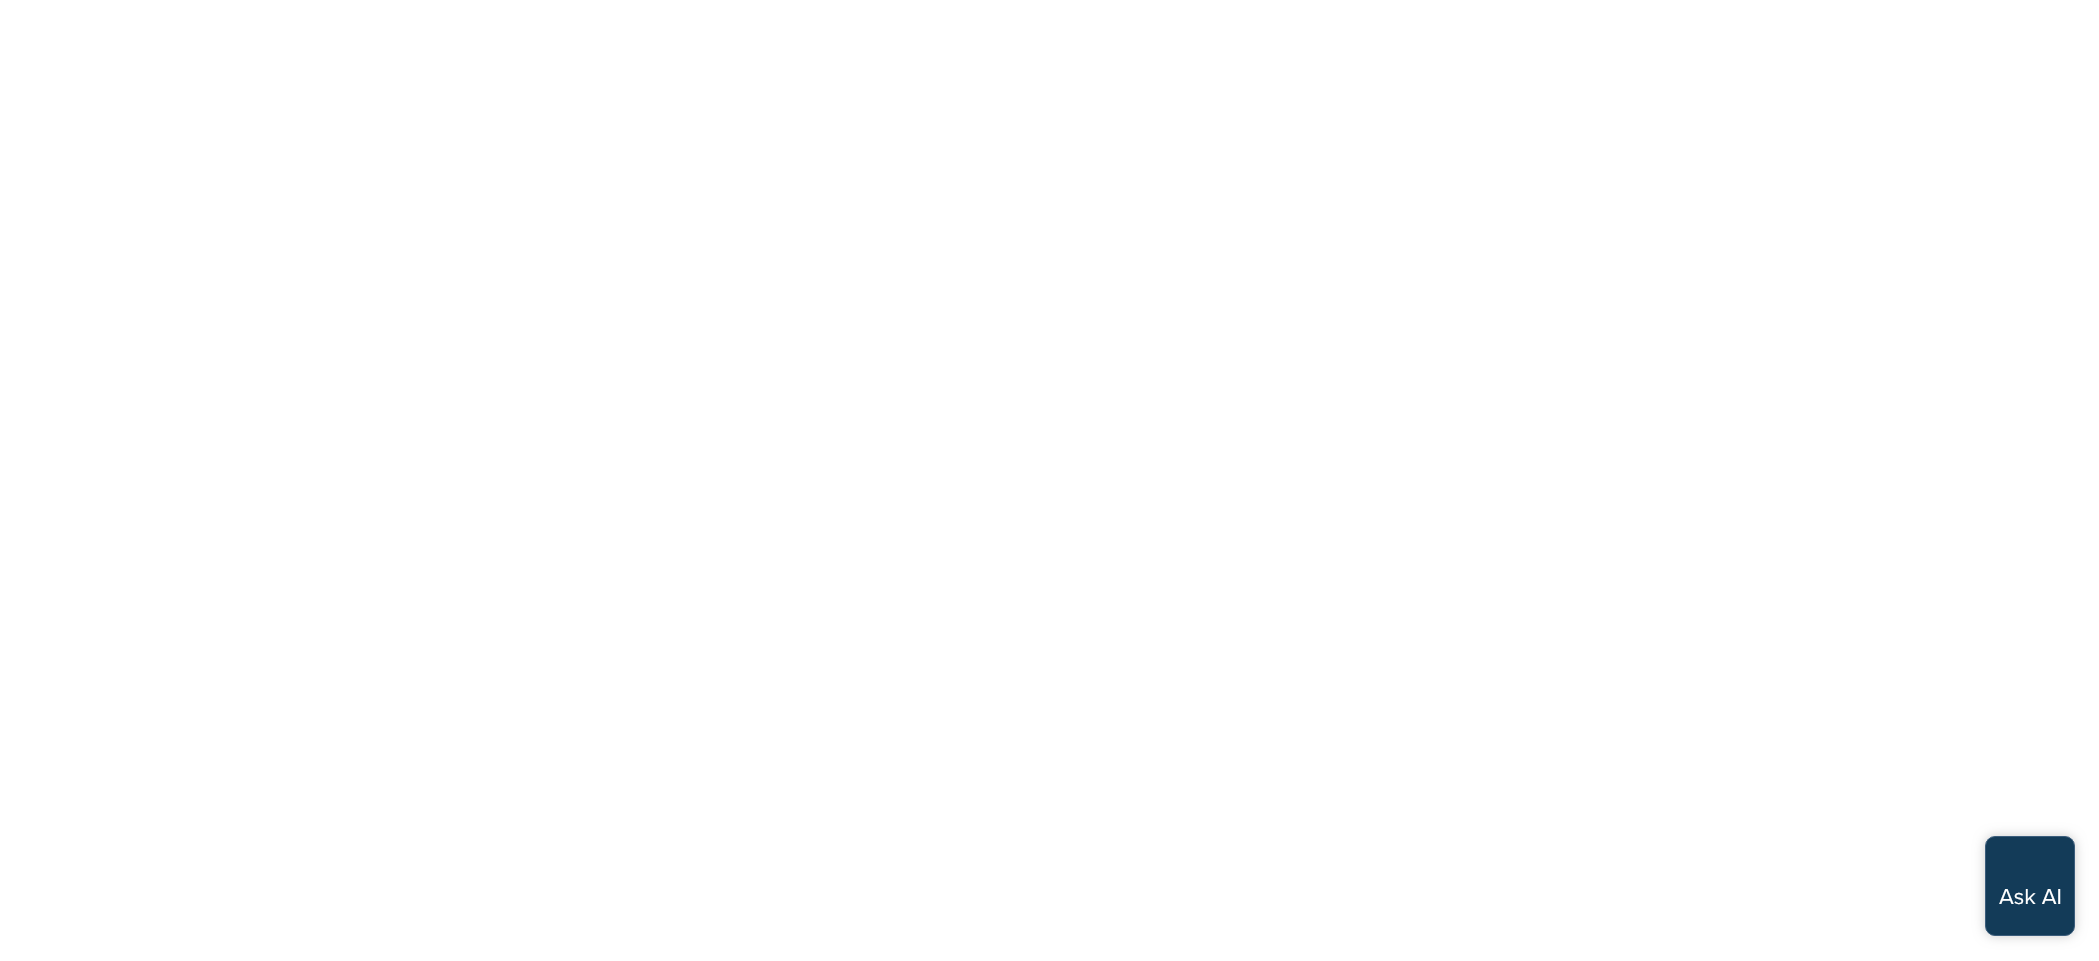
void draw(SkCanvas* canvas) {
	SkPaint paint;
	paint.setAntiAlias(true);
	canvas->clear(0xffffffff);
	paint.setColor(0x33000000);
	paint.setMaskFilter(SkMaskFilter::MakeBlur(kNormal_SkBlurStyle, 6));
	canvas->drawRoundRect(SkRect::MakeXYWH(1985, 836, 90, 100), 10, 10, paint);
	paint.setMaskFilter(nullptr);
	paint.setColor(0xff133b58);
	canvas->drawRoundRect(SkRect::MakeXYWH(1985.5, 836.5, 89, 99), 9.5, 9.5, paint);
	paint.setStroke(true);
	paint.setStrokeWidth(1);
	paint.setColor(0xff3b5d7c);
	canvas->drawRoundRect(SkRect::MakeXYWH(1985.5, 836.5, 89, 99), 9.5, 9.5, paint);
	SkFont f1(fontMgr->matchFamilyStyle("Proxima Nova", SkFontStyle::Normal()), 22.5);
	f1.setSubpixel(true);
	paint.setStroke(false);
	paint.setColor(0xffffffff);
	canvas->drawString("Ask AI", 1999, 904, f1, paint);
}
